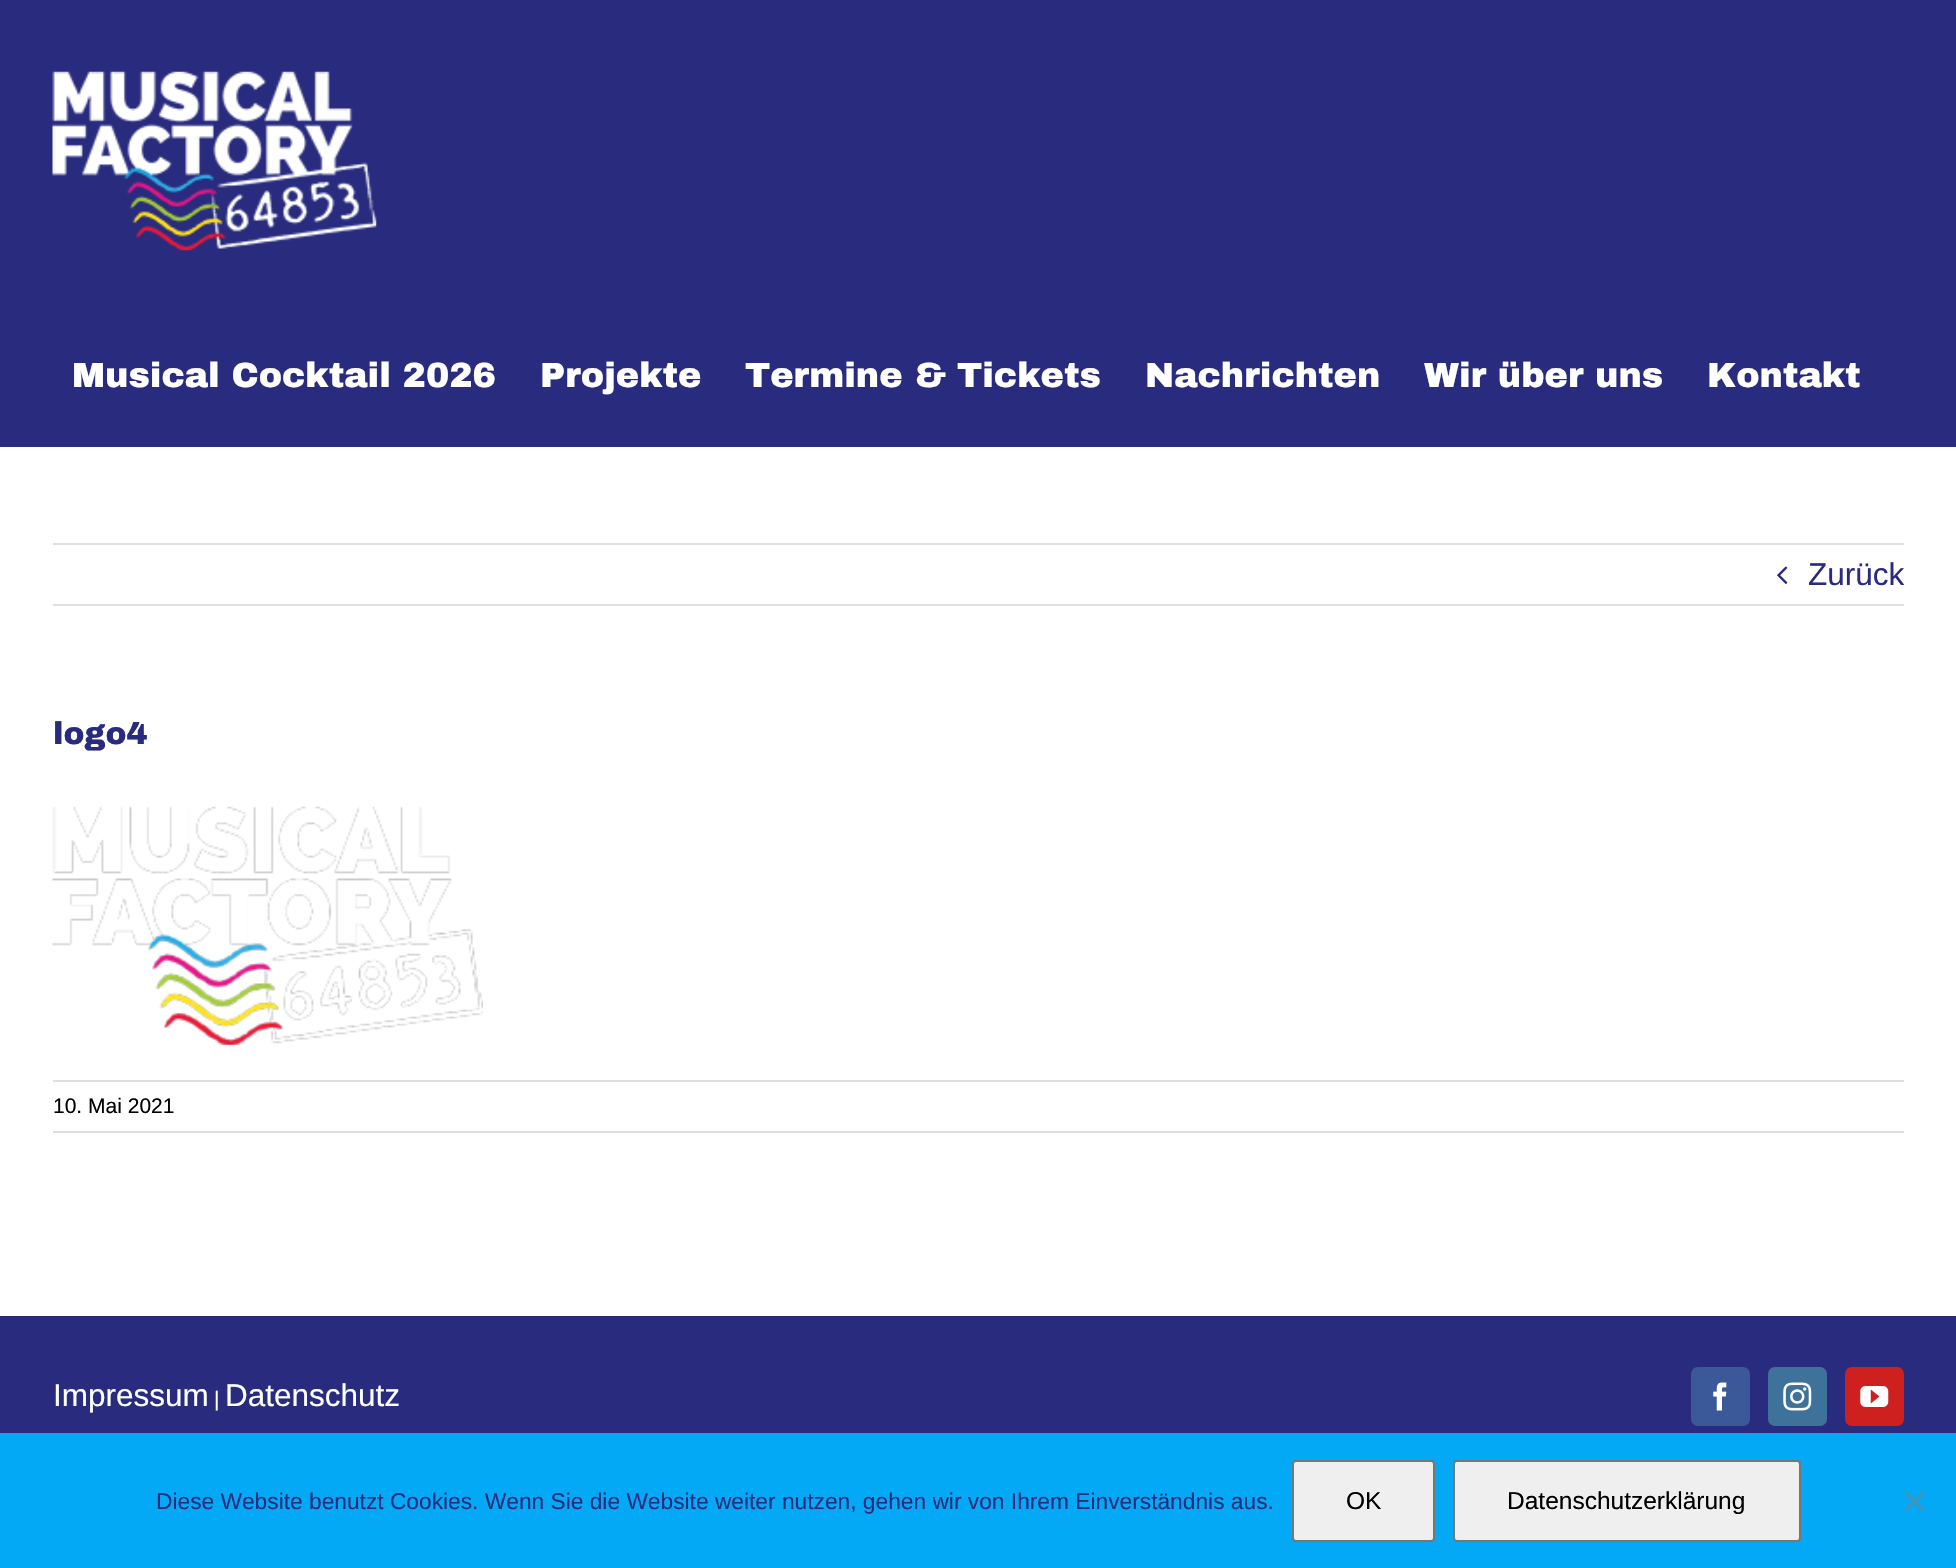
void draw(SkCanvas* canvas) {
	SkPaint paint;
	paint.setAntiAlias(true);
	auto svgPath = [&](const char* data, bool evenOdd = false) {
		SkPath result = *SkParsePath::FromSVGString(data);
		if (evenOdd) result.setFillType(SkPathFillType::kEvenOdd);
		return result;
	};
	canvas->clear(0xff292c7e);
	canvas->drawImageRect(SkImages::DeferredFromEncodedData(SkData::MakeFromFileName("img1.png")), SkRect::MakeXYWH(52, 71, 325, 180), SkSamplingOptions());
	SkFont f1(fontMgr->matchFamilyStyle("Archivo Black", SkFontStyle(900, SkFontStyle::kNormal_Width, SkFontStyle::kUpright_Slant)), 35);
	f1.setSubpixel(true);
	paint.setColor(0xffffffff);
	canvas->drawString("Musical Cocktail 2026", 72, 387, f1, paint);
	canvas->drawString("Projekte", 540, 387, f1, paint);
	canvas->drawString("Termine & Tickets", 745, 387, f1, paint);
	canvas->drawString("Nachrichten", 1145, 387, f1, paint);
	canvas->drawString("Wir über uns", 1424, 387, f1, paint);
	canvas->drawString("Kontakt", 1707, 387, f1, paint);
	canvas->drawRect(SkRect::MakeXYWH(0, 447, 1956, 869), paint);
	paint.setColor(0xffe0dede);
	canvas->drawRect(SkRect::MakeXYWH(53, 543, 1851, 2), paint);
	canvas->drawRect(SkRect::MakeXYWH(53, 604, 1851, 2), paint);
	canvas->drawImageRect(SkImages::DeferredFromEncodedData(SkData::MakeFromFileName("img2.png")), SkRect::MakeXYWH(1777, 566, 11, 18), SkSamplingOptions());
	SkFont f2(fontMgr->matchFamilyStyle("Liberation Sans", SkFontStyle::Normal()), 31.5);
	f2.setSubpixel(true);
	paint.setColor(0xff292c7e);
	canvas->drawString("Zurück", 1808, 585, f2, paint);
	SkFont f3(fontMgr->matchFamilyStyle("Archivo Black", SkFontStyle(900, SkFontStyle::kNormal_Width, SkFontStyle::kUpright_Slant)), 31.5);
	f3.setSubpixel(true);
	canvas->drawString("logo4", 53, 744, f3, paint);
	canvas->drawImageRect(SkImages::DeferredFromEncodedData(SkData::MakeFromFileName("img3.png")), SkRect::MakeXYWH(52, 806, 431, 239), SkSamplingOptions());
	paint.setColor(0xffe0dede);
	canvas->drawRect(SkRect::MakeXYWH(53, 1080, 1851, 2), paint);
	canvas->drawRect(SkRect::MakeXYWH(53, 1131, 1851, 2), paint);
	SkFont f4(fontMgr->matchFamilyStyle("Liberation Sans", SkFontStyle::Normal()), 21);
	f4.setSubpixel(true);
	paint.setColor(0xff000000);
	canvas->drawString("10. Mai 2021", 53, 1113, f4, paint);
	paint.setColor(0xffffffff);
	canvas->drawString("Impressum", 53, 1406, f2, paint);
	canvas->drawString("|", 214, 1406, f4, paint);
	canvas->drawString("Datenschutz", 225, 1406, f2, paint);
	paint.setColor(0xff3b5998);
	canvas->drawRoundRect(SkRect::MakeXYWH(1692, 1368, 57, 57), 6, 6, paint);
	paint.setStroke(true);
	paint.setStrokeWidth(2);
	canvas->drawRoundRect(SkRect::MakeXYWH(1692, 1368, 57, 57), 6, 6, paint);
	canvas->drawImageRect(SkImages::DeferredFromEncodedData(SkData::MakeFromFileName("img4.png")), SkRect::MakeXYWH(1713, 1382, 14, 29), SkSamplingOptions());
	paint.setStroke(false);
	paint.setColor(0xff3f729b);
	canvas->drawRoundRect(SkRect::MakeXYWH(1769, 1368, 57, 57), 6, 6, paint);
	paint.setStroke(true);
	canvas->drawRoundRect(SkRect::MakeXYWH(1769, 1368, 57, 57), 6, 6, paint);
	canvas->drawImageRect(SkImages::DeferredFromEncodedData(SkData::MakeFromFileName("img5.png")), SkRect::MakeXYWH(1783, 1382, 29, 29), SkSamplingOptions());
	paint.setStroke(false);
	paint.setColor(0xffcd201f);
	canvas->drawRoundRect(SkRect::MakeXYWH(1846, 1368, 57, 57), 6, 6, paint);
	paint.setStroke(true);
	canvas->drawRoundRect(SkRect::MakeXYWH(1846, 1368, 57, 57), 6, 6, paint);
	canvas->drawImageRect(SkImages::DeferredFromEncodedData(SkData::MakeFromFileName("img6.png")), SkRect::MakeXYWH(1860, 1386, 29, 21), SkSamplingOptions());
	paint.setStroke(false);
	paint.setColor(0xff03a9f4);
	canvas->drawRect(SkRect::MakeXYWH(0, 1433, 1956, 135), paint);
	SkFont f5(fontMgr->matchFamilyStyle("Liberation Sans", SkFontStyle::Normal()), 22.75);
	f5.setSubpixel(true);
	paint.setColor(0xff292c7e);
	canvas->drawString("Diese Website benutzt Cookies. Wenn Sie die Website weiter nutzen, gehen wir von Ihrem Einverständnis aus.", 156, 1509, f5, paint);
	paint.setColor(0xffefefef);
	canvas->drawRoundRect(SkRect::MakeXYWH(1293, 1461, 141, 80), 3, 3, paint);
	paint.setStroke(true);
	paint.setColor(0xff767676);
	canvas->drawRoundRect(SkRect::MakeXYWH(1293, 1461, 141, 80), 3, 3, paint);
	SkFont f6(fontMgr->matchFamilyStyle("Liberation Sans", SkFontStyle::Normal()), 24.5);
	f6.setSubpixel(true);
	paint.setStroke(false);
	paint.setColor(0xff000000);
	canvas->drawString("OK", 1346, 1509, f6, paint);
	paint.setColor(0xffefefef);
	canvas->drawRoundRect(SkRect::MakeXYWH(1454, 1461, 346, 80), 3, 3, paint);
	paint.setStroke(true);
	paint.setColor(0xff767676);
	canvas->drawRoundRect(SkRect::MakeXYWH(1454, 1461, 346, 80), 3, 3, paint);
	paint.setStroke(false);
	paint.setColor(0xff000000);
	canvas->drawString("Datenschutzerklärung", 1507, 1509, f6, paint);
	paint.setColor(0xff4295ba);
	canvas->drawPath(svgPath("M1922.5 1491L1925 1493.5L1906.5 1512L1904 1509.5Z"), paint);
	canvas->drawPath(svgPath("M1904 1493.5L1906.5 1491L1925 1509.5L1922.5 1512Z"), paint);
}
